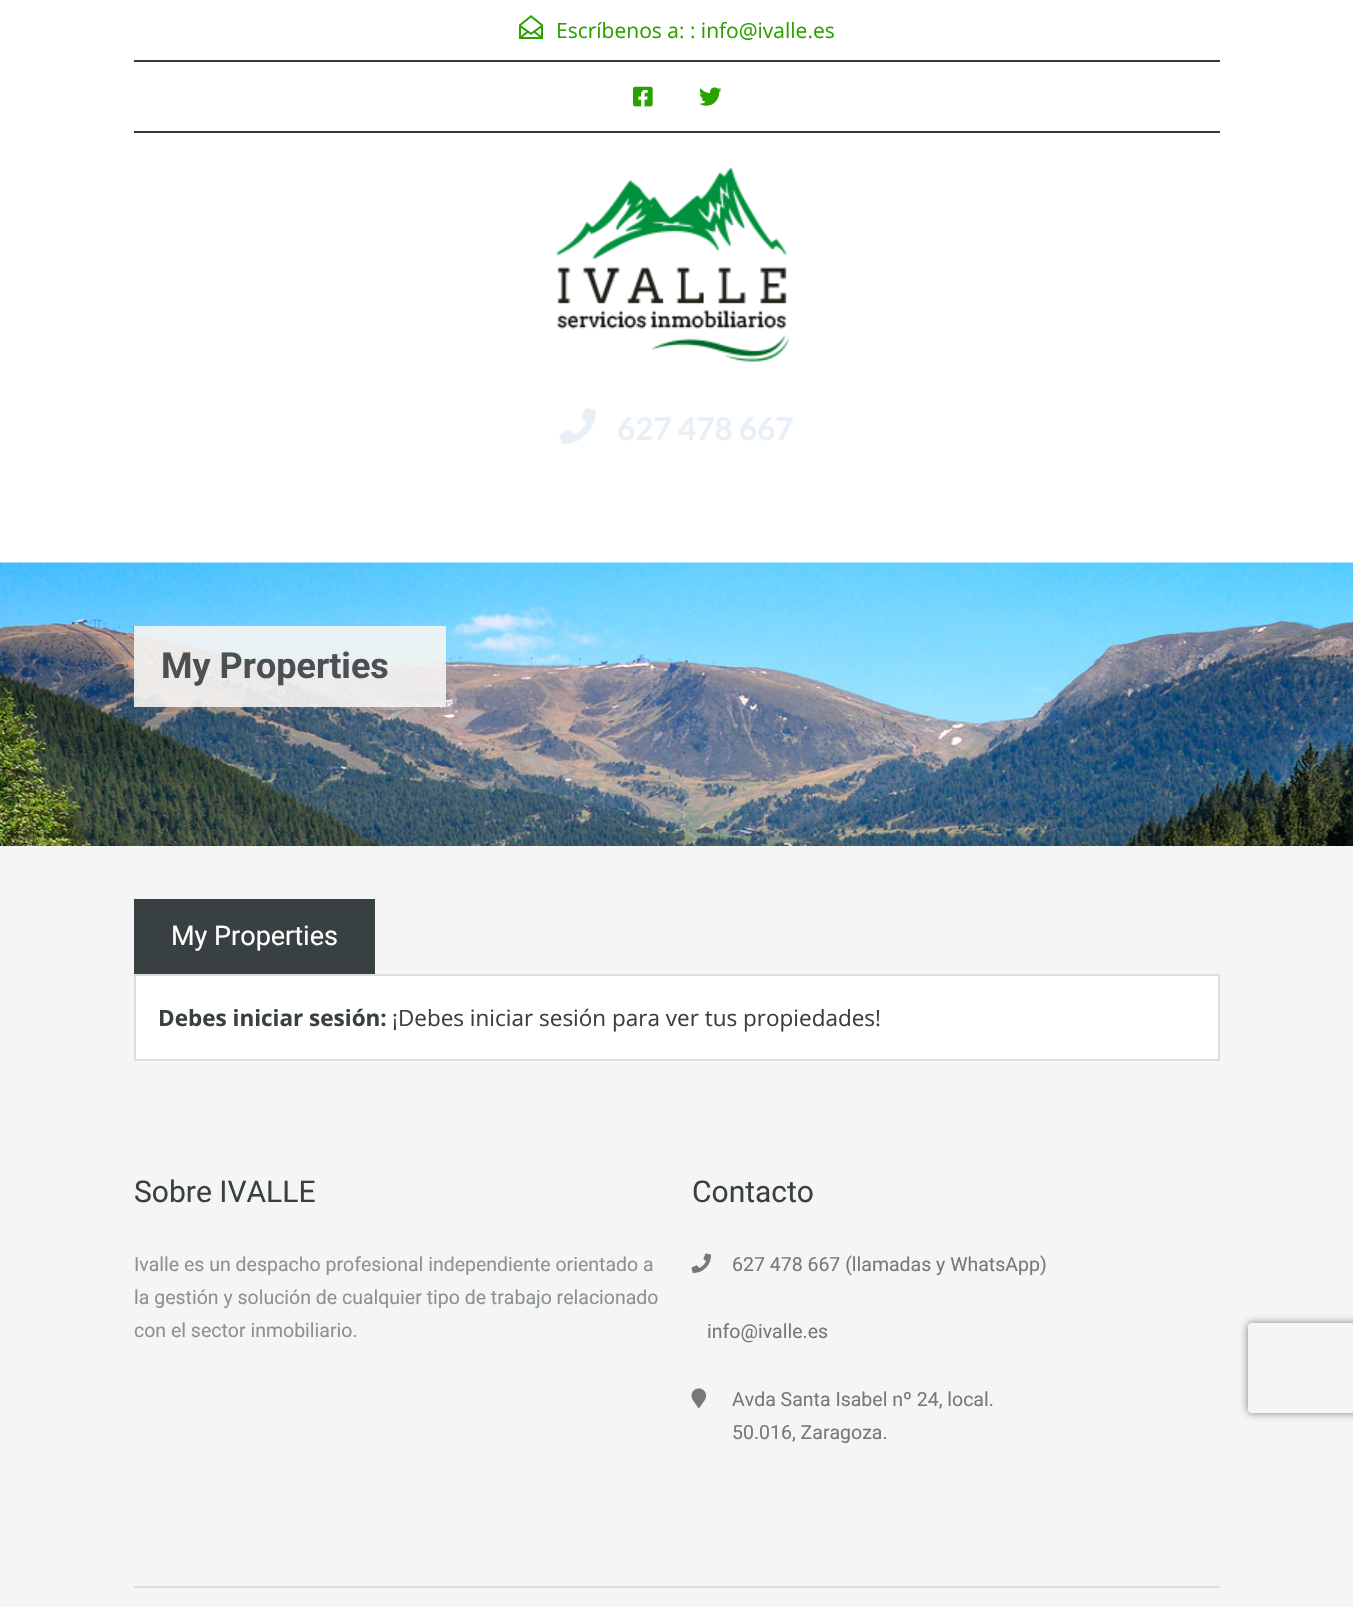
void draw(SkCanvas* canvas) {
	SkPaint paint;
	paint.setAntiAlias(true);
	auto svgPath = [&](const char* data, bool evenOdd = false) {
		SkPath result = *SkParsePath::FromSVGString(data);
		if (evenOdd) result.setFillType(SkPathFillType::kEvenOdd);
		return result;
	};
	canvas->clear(0xfff5f5f5);
	paint.setColor(0xffffffff);
	canvas->drawRect(SkRect::MakeXYWH(0, 0, 1353, 563), paint);
	paint.setColor(0xff343a3b);
	canvas->drawRect(SkRect::MakeXYWH(134, 131, 1086, 2), paint);
	canvas->drawImageRect(SkImages::DeferredFromEncodedData(SkData::MakeFromFileName("img1.png")), SkRect::MakeXYWH(519, 15, 24, 24), SkSamplingOptions());
	SkFont f1(fontMgr->matchFamilyStyle("Open Sans", SkFontStyle::Normal()), 21);
	f1.setSubpixel(true);
	paint.setColor(0xff2ba100);
	canvas->drawString("Escríbenos a: : info@ivalle.es", 556, 38, f1, paint);
	paint.setColor(0xff343a3b);
	canvas->drawRect(SkRect::MakeXYWH(134, 60, 1086, 2), paint);
	canvas->drawImageRect(SkImages::DeferredFromEncodedData(SkData::MakeFromFileName("img2.png")), SkRect::MakeXYWH(633, 86, 20, 21), SkSamplingOptions());
	canvas->drawImageRect(SkImages::DeferredFromEncodedData(SkData::MakeFromFileName("img3.png")), SkRect::MakeXYWH(699, 87, 23, 19), SkSamplingOptions());
	canvas->drawImageRect(SkImages::DeferredFromEncodedData(SkData::MakeFromFileName("img4.png")), SkRect::MakeXYWH(556, 167, 234, 195), SkSamplingOptions());
	canvas->drawImageRect(SkImages::DeferredFromEncodedData(SkData::MakeFromFileName("img5.png")), SkRect::MakeXYWH(559, 408, 37, 36), SkSamplingOptions());
	SkFont f2(fontMgr->matchFamilyStyle("Lato", SkFontStyle::Bold()), 31.5);
	f2.setSubpixel(true);
	paint.setColor(0xffe7eff7);
	canvas->drawString("627 478 667", 617, 440, f2, paint);
	canvas->drawImageRect(SkImages::DeferredFromEncodedData(SkData::MakeFromFileName("img6.png")), SkRect::MakeXYWH(0, 562, 1353, 284), SkSamplingOptions());
	paint.setColor(0xe6f5f4f3);
	canvas->drawRect(SkRect::MakeXYWH(134, 626, 312, 81), paint);
	SkFont f3(fontMgr->matchFamilyStyle("Roboto", SkFontStyle::Bold()), 36);
	f3.setSubpixel(true);
	paint.setColor(0xff4b5152);
	canvas->drawString("My Properties", 161, 678, f3, paint);
	paint.setColor(0xff394041);
	canvas->drawRect(SkRect::MakeXYWH(134, 899, 241, 75), paint);
	SkFont f4(fontMgr->matchFamilyStyle("Roboto", SkFontStyle::Normal()), 27);
	f4.setSubpixel(true);
	paint.setColor(0xffffffff);
	canvas->drawString("My Properties", 171, 945, f4, paint);
	canvas->drawRect(SkRect::MakeXYWH(135, 975, 1084, 85), paint);
	paint.setStroke(true);
	paint.setStrokeWidth(2);
	paint.setColor(0xffdedede);
	canvas->drawRect(SkRect::MakeXYWH(135, 975, 1084, 85), paint);
	SkFont f5(fontMgr->matchFamilyStyle("Open Sans", SkFontStyle::Bold()), 22.5);
	f5.setSubpixel(true);
	paint.setStroke(false);
	paint.setColor(0xff394041);
	canvas->drawString("Debes iniciar sesión:", 158, 1026, f5, paint);
	SkFont f6(fontMgr->matchFamilyStyle("Open Sans", SkFontStyle::Normal()), 22.5);
	f6.setSubpixel(true);
	canvas->drawString("¡Debes iniciar sesión para ver tus propiedades!", 392, 1026, f6, paint);
	SkFont f7(fontMgr->matchFamilyStyle("Roboto", SkFontStyle::Normal()), 30);
	f7.setSubpixel(true);
	canvas->drawString("Sobre IVALLE", 134, 1202, f7, paint);
	SkFont f8(fontMgr->matchFamilyStyle("Roboto", SkFontStyle::Normal()), 19.5);
	f8.setSubpixel(true);
	paint.setColor(0xff8b9293);
	canvas->drawString("Ivalle es un despacho profesional independiente orientado a", 134, 1271, f8, paint);
	canvas->drawString("la gestión y solución de cualquier tipo de trabajo relacionado", 134, 1304, f8, paint);
	canvas->drawString("con el sector inmobiliario.", 134, 1337, f8, paint);
	paint.setColor(0xff394041);
	canvas->drawString("Contacto", 692, 1202, f7, paint);
	canvas->drawImageRect(SkImages::DeferredFromEncodedData(SkData::MakeFromFileName("img7.png")), SkRect::MakeXYWH(691, 1253, 20, 20), SkSamplingOptions());
	paint.setColor(0xff75797a);
	canvas->drawString("627 478 667 (llamadas y WhatsApp)", 732, 1271, f8, paint);
	canvas->drawString("info@ivalle.es", 707, 1338, f8, paint);
	canvas->drawImageRect(SkImages::DeferredFromEncodedData(SkData::MakeFromFileName("img8.png")), SkRect::MakeXYWH(691, 1388, 16, 20), SkSamplingOptions());
	canvas->drawString("Avda Santa Isabel nº 24, local.", 732, 1406, f8, paint);
	canvas->drawString("50.016, Zaragoza.", 732, 1439, f8, paint);
	paint.setColor(0xffdedede);
	canvas->drawRect(SkRect::MakeXYWH(134, 1586, 1086, 2), paint);
	canvas->save();
	canvas->clipPath(svgPath("M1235 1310H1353V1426H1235ZM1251 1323H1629C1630.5 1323 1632 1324.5 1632 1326V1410C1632 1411.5 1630.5 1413 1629 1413H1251C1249.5 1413 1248 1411.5 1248 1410V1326C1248 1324.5 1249.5 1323 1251 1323Z", true), true);
	paint.setColor(0xff808080);
	paint.setMaskFilter(SkMaskFilter::MakeBlur(kNormal_SkBlurStyle, 4));
	canvas->drawRoundRect(SkRect::MakeXYWH(1248, 1323, 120, 90), 3, 3, paint);
	paint.setMaskFilter(nullptr);
	canvas->restore();
}
